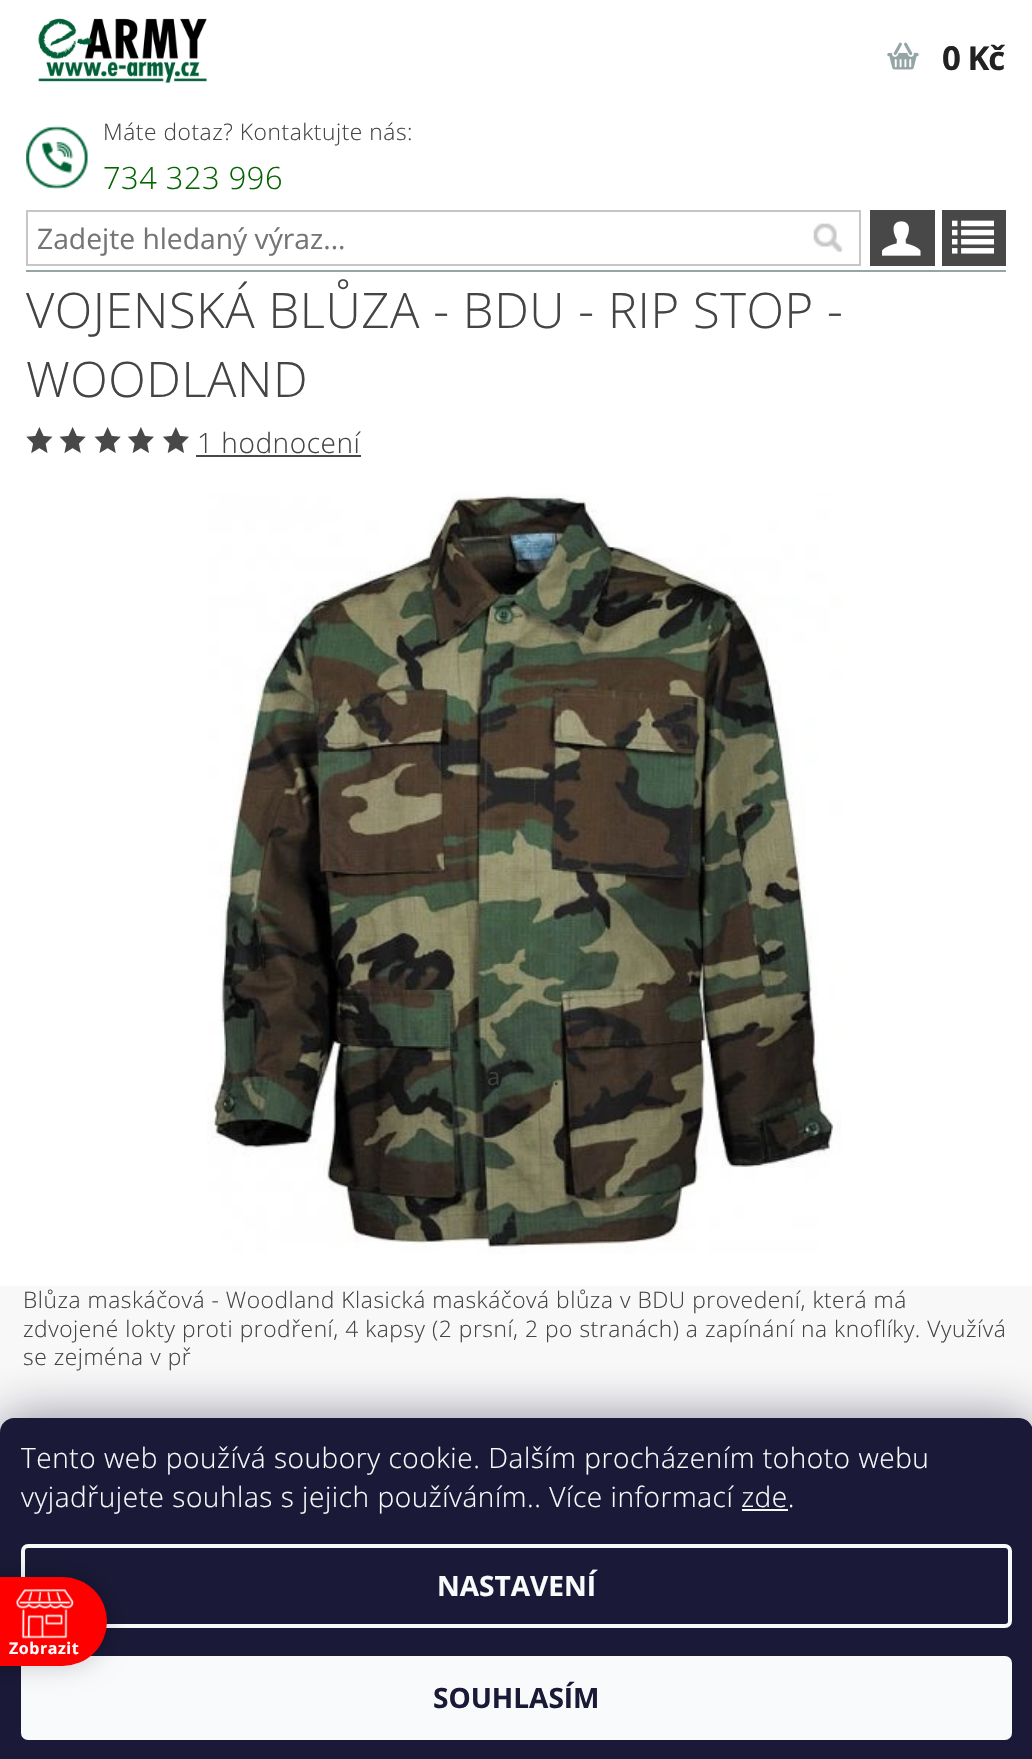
void draw(SkCanvas* canvas) {
	SkPaint paint;
	paint.setAntiAlias(true);
	auto spacedText = [&](const char* s, float x, float y, const SkFont& font, const SkPaint& ink, float letter, float word) {
		std::vector<SkGlyphID> glyphs(font.countText(s, strlen(s), SkTextEncoding::kUTF8));
		std::vector<float> xs(glyphs.size());
		font.textToGlyphs(s, strlen(s), SkTextEncoding::kUTF8, glyphs);
		font.getXPos(glyphs, xs, x);
		float extra = 0;
		for (size_t i = 0; i < glyphs.size(); i++) {
			xs[i] += extra;
			extra += letter + word * (glyphs[i] == font.unicharToGlyph(' '));
		}
		canvas->drawTextBlob(SkTextBlob::MakeFromPosHGlyphs(glyphs, xs, y, font), 0, 0, ink);
	};
	auto svgPath = [&](const char* data, bool evenOdd = false) {
		SkPath result = *SkParsePath::FromSVGString(data);
		if (evenOdd) result.setFillType(SkPathFillType::kEvenOdd);
		return result;
	};
	canvas->clear(0xffffffff);
	paint.setColor(0xff95a5a6);
	canvas->drawRect(SkRect::MakeXYWH(26, 270, 980, 2), paint);
	canvas->drawImageRect(SkImages::DeferredFromEncodedData(SkData::MakeFromFileName("img1.png")), SkRect::MakeXYWH(38, 18, 170, 66), SkSamplingOptions());
	canvas->drawImageRect(SkImages::DeferredFromEncodedData(SkData::MakeFromFileName("img2.png")), SkRect::MakeXYWH(887, 42, 32, 28), SkSamplingOptions());
	SkFont f1(fontMgr->matchFamilyStyle("Open Sans", SkFontStyle::Bold()), 33);
	f1.setSubpixel(true);
	paint.setColor(0xff222222);
	spacedText("0 Kč", 942, 70, f1, paint, -1, 0);
	paint.setColor(0xff484848);
	canvas->drawRect(SkRect::MakeXYWH(870, 210, 65, 56), paint);
	canvas->drawImageRect(SkImages::DeferredFromEncodedData(SkData::MakeFromFileName("img3.png")), SkRect::MakeXYWH(882, 221, 39, 35), SkSamplingOptions());
	canvas->drawImageRect(SkImages::DeferredFromEncodedData(SkData::MakeFromFileName("img4.png")), SkRect::MakeXYWH(26, 126, 62, 63), SkSamplingOptions());
	SkFont f2(fontMgr->matchFamilyStyle("Open Sans", SkFontStyle(300, SkFontStyle::kNormal_Width, SkFontStyle::kUpright_Slant)), 22.75);
	f2.setSubpixel(true);
	paint.setColor(0xff444444);
	spacedText("Máte dotaz? Kontaktujte nás:", 103, 140, f2, paint, 0.55, 0);
	SkFont f3(fontMgr->matchFamilyStyle("Open Sans", SkFontStyle(300, SkFontStyle::kNormal_Width, SkFontStyle::kUpright_Slant)), 30.75);
	f3.setSubpixel(true);
	paint.setColor(0xff036400);
	spacedText("734 323 996", 103, 189, f3, paint, 0.55, 0);
	paint.setStroke(true);
	paint.setStrokeWidth(2);
	paint.setColor(0xffc6c6c6);
	canvas->drawRect(SkRect::MakeXYWH(27, 211, 833, 54), paint);
	SkFont f4(fontMgr->matchFamilyStyle("Open Sans", SkFontStyle::Normal()), 28.25);
	f4.setSubpixel(true);
	paint.setStroke(false);
	paint.setColor(0xff757575);
	canvas->drawString("Zadejte hledaný výraz...", 37, 249, f4, paint);
	canvas->drawImageRect(SkImages::DeferredFromEncodedData(SkData::MakeFromFileName("img5.png")), SkRect::MakeXYWH(813, 223, 30, 29), SkSamplingOptions());
	paint.setColor(0xff484848);
	canvas->drawRect(SkRect::MakeXYWH(942, 210, 64, 56), paint);
	canvas->drawImageRect(SkImages::DeferredFromEncodedData(SkData::MakeFromFileName("img6.png")), SkRect::MakeXYWH(952, 220, 42, 34), SkSamplingOptions());
	SkFont f5(fontMgr->matchFamilyStyle("Open Sans", SkFontStyle(300, SkFontStyle::kNormal_Width, SkFontStyle::kUpright_Slant)), 49);
	f5.setSubpixel(true);
	paint.setColor(0xff444444);
	spacedText("VOJENSKÁ BLŮZA - BDU - RIP STOP -", 26, 328, f5, paint, 0.55, 0);
	spacedText("WOODLAND", 26, 397, f5, paint, 0.55, 0);
	canvas->drawImageRect(SkImages::DeferredFromEncodedData(SkData::MakeFromFileName("img7.png")), SkRect::MakeXYWH(26, 427, 27, 26), SkSamplingOptions());
	canvas->drawImageRect(SkImages::DeferredFromEncodedData(SkData::MakeFromFileName("img8.png")), SkRect::MakeXYWH(59, 427, 27, 26), SkSamplingOptions());
	canvas->drawImageRect(SkImages::DeferredFromEncodedData(SkData::MakeFromFileName("img8.png")), SkRect::MakeXYWH(94, 427, 27, 26), SkSamplingOptions());
	canvas->drawImageRect(SkImages::DeferredFromEncodedData(SkData::MakeFromFileName("img9.png")), SkRect::MakeXYWH(127, 427, 27, 26), SkSamplingOptions());
	canvas->drawImageRect(SkImages::DeferredFromEncodedData(SkData::MakeFromFileName("img9.png")), SkRect::MakeXYWH(162, 427, 27, 26), SkSamplingOptions());
	SkFont f6(fontMgr->matchFamilyStyle("Open Sans", SkFontStyle(300, SkFontStyle::kNormal_Width, SkFontStyle::kUpright_Slant)), 28);
	f6.setSubpixel(true);
	spacedText("1 hodnocení", 197, 453, f6, paint, 0.55, 0);
	paint.setColor(0xff484848);
	canvas->drawRect(SkRect::MakeXYWH(196, 455, 165, 2), paint);
	canvas->drawImageRect(SkImages::DeferredFromEncodedData(SkData::MakeFromFileName("img10.png")), SkRect::MakeXYWH(207, 492, 635, 762), SkSamplingOptions());
	SkFont f7(fontMgr->matchFamilyStyle("Open Sans", SkFontStyle::Normal()), 24);
	f7.setSubpixel(true);
	paint.setColor(0xff3b403b);
	spacedText("a", 487, 1085, f7, paint, 0.55, 0);
	spacedText(".", 553, 1085, f7, paint, 0.55, 0);
	paint.setColor(0xfff8f8f8);
	canvas->drawRect(SkRect::MakeXYWH(0, 1286, 1032, 146), paint);
	paint.setColor(0xff444444);
	spacedText("Blůza maskáčová - Woodland Klasická maskáčová blůza v BDU provedení, která má", 23, 1308, f2, paint, 0.55, 0);
	spacedText("zdvojené lokty proti prodření, 4 kapsy (2 prsní, 2 po stranách) a zapínání na knoflíky. Využívá", 23, 1337, f2, paint, 0.55, 0);
	spacedText("se zejména v př", 23, 1365, f2, paint, 0.55, 0);
	paint.setColor(0x801b1939);
	paint.setMaskFilter(SkMaskFilter::MakeBlur(kNormal_SkBlurStyle, 26));
	canvas->drawRoundRect(SkRect::MakeXYWH(0, 1418, 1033, 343), 14, 14, paint);
	paint.setMaskFilter(nullptr);
	paint.setColor(0xff1a1937);
	canvas->drawPath(svgPath("M14 1418H1019C1026.5 1418 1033 1424.5 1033 1432V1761H0V1432C0 1424.5 6.5 1418 14 1418Z"), paint);
	paint.setColor(0xfff8fafb);
	spacedText("Tento web používá soubory cookie. Dalším procházením tohoto webu", 21, 1468, f6, paint, 0.55, 0);
	spacedText("vyjadřujete souhlas s jejich používáním.. Více informací zde.", 21, 1507, f6, paint, 0.55, 0);
	canvas->drawRect(SkRect::MakeXYWH(742, 1509, 46, 2), paint);
	paint.setStroke(true);
	paint.setStrokeWidth(4);
	canvas->drawRoundRect(SkRect::MakeXYWH(23, 1546, 987, 80), 5, 5, paint);
	SkFont f8(fontMgr->matchFamilyStyle("Open Sans", SkFontStyle::Bold()), 28);
	f8.setSubpixel(true);
	paint.setStroke(false);
	canvas->drawString("NASTAVENÍ", 437, 1596, f8, paint);
	canvas->drawRoundRect(SkRect::MakeXYWH(21, 1656, 991, 84), 7, 7, paint);
	paint.setColor(0xff1a1937);
	canvas->drawString("SOUHLASÍM", 433, 1708, f8, paint);
	paint.setColor(0x33000000);
	paint.setMaskFilter(SkMaskFilter::MakeBlur(kNormal_SkBlurStyle, 13));
	canvas->drawRoundRect(SkRect::MakeXYWH(-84, 1577, 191, 89), 44.5, 44.5, paint);
	paint.setMaskFilter(nullptr);
	paint.setColor(0xffff0000);
	canvas->drawRoundRect(SkRect::MakeXYWH(-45, 1577, 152, 89), 44.5, 44.5, paint);
	canvas->drawImageRect(SkImages::DeferredFromEncodedData(SkData::MakeFromFileName("img11.png")), SkRect::MakeXYWH(16, 1589, 58, 50), SkSamplingOptions());
	SkFont f9(fontMgr->matchFamilyStyle("Open Sans", SkFontStyle::Bold()), 16);
	f9.setSubpixel(true);
	paint.setColor(0xffffffff);
	spacedText("Zobrazit", 9, 1654, f9, paint, 0.55, 0);
}
